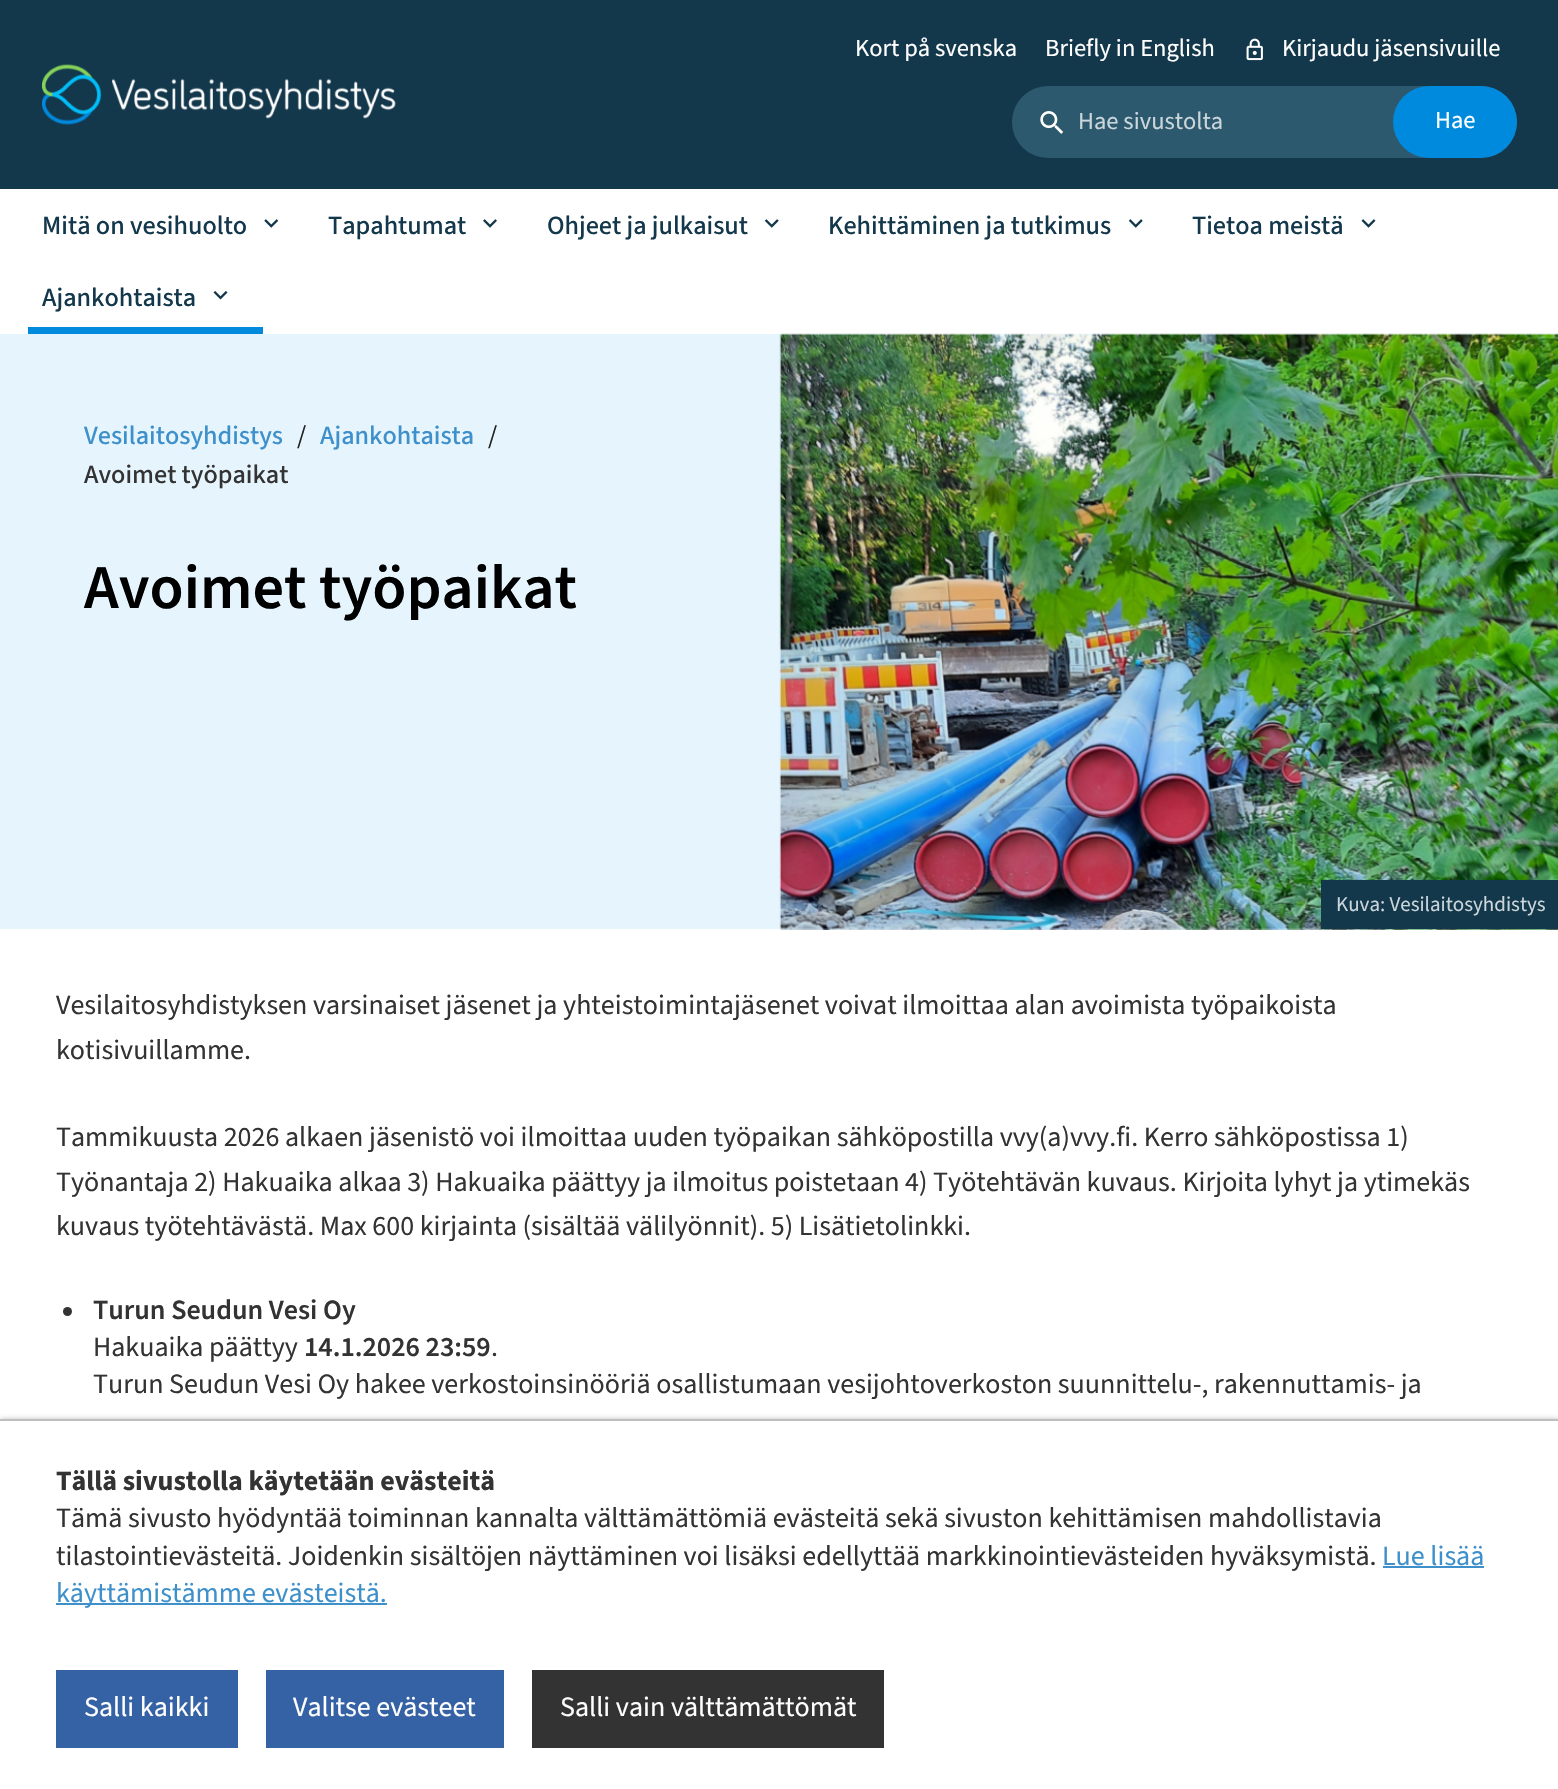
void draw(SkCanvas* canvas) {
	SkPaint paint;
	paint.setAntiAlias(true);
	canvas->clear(0xffffffff);
	paint.setColor(0xff13374b);
	canvas->drawRect(SkRect::MakeXYWH(0, 0, 1558, 189), paint);
	canvas->drawImageRect(SkImages::DeferredFromEncodedData(SkData::MakeFromFileName("img1.png")), SkRect::MakeXYWH(42, 64, 354, 61), SkSamplingOptions());
	SkFont f1(fontMgr->matchFamilyStyle("Source Sans 3", SkFontStyle::Normal()), 24.5);
	f1.setSubpixel(true);
	paint.setColor(0xffffffff);
	canvas->drawString("Kort på svenska", 855, 56, f1, paint);
	canvas->drawString("Briefly in English", 1045, 56, f1, paint);
	canvas->drawImageRect(SkImages::DeferredFromEncodedData(SkData::MakeFromFileName("img2.png")), SkRect::MakeXYWH(1246, 38, 17, 23), SkSamplingOptions());
	canvas->drawString("Kirjaudu jäsensivuille", 1282, 56, f1, paint);
	paint.setColor(0xff2d596f);
	canvas->drawRoundRect(SkRect::MakeXYWH(1012, 86, 505, 72), 36, 36, paint);
	canvas->drawImageRect(SkImages::DeferredFromEncodedData(SkData::MakeFromFileName("img3.png")), SkRect::MakeXYWH(1040, 111, 24, 23), SkSamplingOptions());
	paint.setColor(0xffcbd6db);
	canvas->drawString("Hae sivustolta", 1078, 129, f1, paint);
	paint.setColor(0xff008ade);
	canvas->drawRoundRect(SkRect::MakeXYWH(1393, 86, 124, 72), 36, 36, paint);
	paint.setColor(0xffffffff);
	canvas->drawString("Hae", 1435, 128, f1, paint);
	SkFont f2(fontMgr->matchFamilyStyle("Source Sans 3", SkFontStyle(500, SkFontStyle::kNormal_Width, SkFontStyle::kUpright_Slant)), 26.25);
	f2.setSubpixel(true);
	paint.setColor(0xff13374b);
	canvas->drawString("Mitä on vesihuolto", 42, 234, f2, paint);
	canvas->drawImageRect(SkImages::DeferredFromEncodedData(SkData::MakeFromFileName("img4.png")), SkRect::MakeXYWH(264, 219, 15, 9), SkSamplingOptions());
	canvas->drawString("Tapahtumat", 328, 234, f2, paint);
	canvas->drawImageRect(SkImages::DeferredFromEncodedData(SkData::MakeFromFileName("img5.png")), SkRect::MakeXYWH(483, 219, 14, 9), SkSamplingOptions());
	canvas->drawString("Ohjeet ja julkaisut", 547, 234, f2, paint);
	canvas->drawImageRect(SkImages::DeferredFromEncodedData(SkData::MakeFromFileName("img6.png")), SkRect::MakeXYWH(764, 219, 15, 9), SkSamplingOptions());
	canvas->drawString("Kehittäminen ja tutkimus", 828, 234, f2, paint);
	canvas->drawImageRect(SkImages::DeferredFromEncodedData(SkData::MakeFromFileName("img6.png")), SkRect::MakeXYWH(1128, 219, 15, 9), SkSamplingOptions());
	canvas->drawString("Tietoa meistä", 1192, 234, f2, paint);
	canvas->drawImageRect(SkImages::DeferredFromEncodedData(SkData::MakeFromFileName("img7.png")), SkRect::MakeXYWH(1361, 219, 15, 9), SkSamplingOptions());
	paint.setColor(0xff008ade);
	canvas->drawRect(SkRect::MakeXYWH(28, 327, 235, 7), paint);
	paint.setColor(0xff13374b);
	canvas->drawString("Ajankohtaista", 42, 306, f2, paint);
	canvas->drawImageRect(SkImages::DeferredFromEncodedData(SkData::MakeFromFileName("img8.png")), SkRect::MakeXYWH(213, 291, 15, 9), SkSamplingOptions());
	paint.setColor(0xffe6f4fd);
	canvas->drawRect(SkRect::MakeXYWH(0, 334, 1558, 595), paint);
	paint.setColor(0xff3e90cb);
	canvas->drawString("Vesilaitosyhdistys", 84, 444, f2, paint);
	SkFont f3(fontMgr->matchFamilyStyle("Source Sans 3", SkFontStyle::Normal()), 26.25);
	f3.setSubpixel(true);
	paint.setColor(0xff232323);
	canvas->drawString("/", 297, 444, f3, paint);
	paint.setColor(0xff3e90cb);
	canvas->drawString("Ajankohtaista", 320, 444, f2, paint);
	paint.setColor(0xff232323);
	canvas->drawString("/", 488, 444, f3, paint);
	paint.setColor(0xff333333);
	canvas->drawString("Avoimet työpaikat", 84, 483, f2, paint);
	SkFont f4(fontMgr->matchFamilyStyle("Source Sans 3", SkFontStyle(600, SkFontStyle::kNormal_Width, SkFontStyle::kUpright_Slant)), 62.25);
	f4.setSubpixel(true);
	paint.setColor(0xff000000);
	canvas->drawString("Avoimet työpaikat", 84, 608, f4, paint);
	canvas->drawImageRect(SkImages::DeferredFromEncodedData(SkData::MakeFromFileName("img9.png")), SkRect::MakeXYWH(779, 333, 779, 597), SkSamplingOptions());
	paint.setColor(0xff13374b);
	canvas->drawRect(SkRect::MakeXYWH(1321, 880, 237, 49), paint);
	SkFont f5(fontMgr->matchFamilyStyle("Source Sans 3", SkFontStyle::Normal()), 21);
	f5.setSubpixel(true);
	paint.setColor(0xffcbd6db);
	canvas->drawString("Kuva: Vesilaitosyhdistys", 1336, 911, f5, paint);
	SkFont f6(fontMgr->matchFamilyStyle("Source Sans 3", SkFontStyle::Normal()), 28);
	f6.setSubpixel(true);
	paint.setColor(0xff333333);
	canvas->drawString("Vesilaitosyhdistyksen varsinaiset jäsenet ja yhteistoimintajäsenet voivat ilmoittaa alan avoimista työpaikoista", 56, 1014, f6, paint);
	canvas->drawString("kotisivuillamme.", 56, 1059, f6, paint);
	canvas->drawString("Tammikuusta 2026 alkaen jäsenistö voi ilmoittaa uuden työpaikan sähköpostilla vvy(a)vvy.fi. Kerro sähköpostissa 1)", 56, 1146, f6, paint);
	canvas->drawString("Työnantaja 2) Hakuaika alkaa 3) Hakuaika päättyy ja ilmoitus poistetaan 4) Työtehtävän kuvaus. Kirjoita lyhyt ja ytimekäs", 56, 1191, f6, paint);
	canvas->drawString("kuvaus työtehtävästä. Max 600 kirjainta (sisältää välilyönnit). 5) Lisätietolinkki.", 56, 1235, f6, paint);
	canvas->drawCircle(67.5, 1311.5, 4.5, paint);
	SkFont f7(fontMgr->matchFamilyStyle("Source Sans 3", SkFontStyle(600, SkFontStyle::kNormal_Width, SkFontStyle::kUpright_Slant)), 28);
	f7.setSubpixel(true);
	canvas->drawString("Turun Seudun Vesi Oy", 93, 1319, f7, paint);
	canvas->drawString("Hakuaika päättyy", 93, 1356, f6, paint);
	canvas->drawString("14.1.2026 23:59", 304, 1356, f7, paint);
	canvas->drawString(".", 491, 1356, f6, paint);
	canvas->drawString("Turun Seudun Vesi Oy hakee verkostoinsinööriä osallistumaan vesijohtoverkoston suunnittelu-, rakennuttamis- ja", 93, 1393, f6, paint);
	paint.setColor(0x40000000);
	paint.setMaskFilter(SkMaskFilter::MakeBlur(kNormal_SkBlurStyle, 2.5));
	canvas->drawRect(SkRect::MakeXYWH(0, 1419, 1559, 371), paint);
	paint.setMaskFilter(nullptr);
	paint.setColor(0xffffffff);
	canvas->drawRect(SkRect::MakeXYWH(0, 1421, 1558, 368), paint);
	paint.setColor(0xffbfbfbf);
	canvas->drawRect(SkRect::MakeXYWH(0, 1419, 1558, 2), paint);
	SkFont f8(fontMgr->matchFamilyStyle("Source Sans 3", SkFontStyle::Bold()), 28);
	f8.setSubpixel(true);
	paint.setColor(0xff333333);
	canvas->drawString("Tällä sivustolla käytetään evästeitä", 56, 1490, f8, paint);
	canvas->drawString("Tämä sivusto hyödyntää toiminnan kannalta välttämättömiä evästeitä sekä sivuston kehittämisen mahdollistavia", 56, 1527, f6, paint);
	canvas->drawString("tilastointievästeitä. Joidenkin sisältöjen näyttäminen voi lisäksi edellyttää markkinointievästeiden hyväksymistä.", 56, 1565, f6, paint);
	paint.setColor(0xff3e90cb);
	canvas->drawString("Lue lisää", 1382, 1565, f6, paint);
	canvas->drawRect(SkRect::MakeXYWH(1383, 1566, 101, 2), paint);
	canvas->drawRect(SkRect::MakeXYWH(56, 1603, 331, 2), paint);
	canvas->drawString("käyttämistämme evästeistä.", 56, 1602, f6, paint);
	paint.setColor(0xff3562a5);
	canvas->drawRect(SkRect::MakeXYWH(56, 1670, 182, 78), paint);
	paint.setColor(0xffffffff);
	canvas->drawString("Salli kaikki", 84, 1716, f6, paint);
	paint.setColor(0xff3562a5);
	canvas->drawRect(SkRect::MakeXYWH(266, 1670, 238, 78), paint);
	paint.setColor(0xffffffff);
	canvas->drawString("Valitse evästeet", 293, 1716, f6, paint);
	paint.setColor(0xff333333);
	canvas->drawRect(SkRect::MakeXYWH(532, 1670, 352, 78), paint);
	paint.setColor(0xffffffff);
	canvas->drawString("Salli vain välttämättömät", 560, 1716, f6, paint);
}
